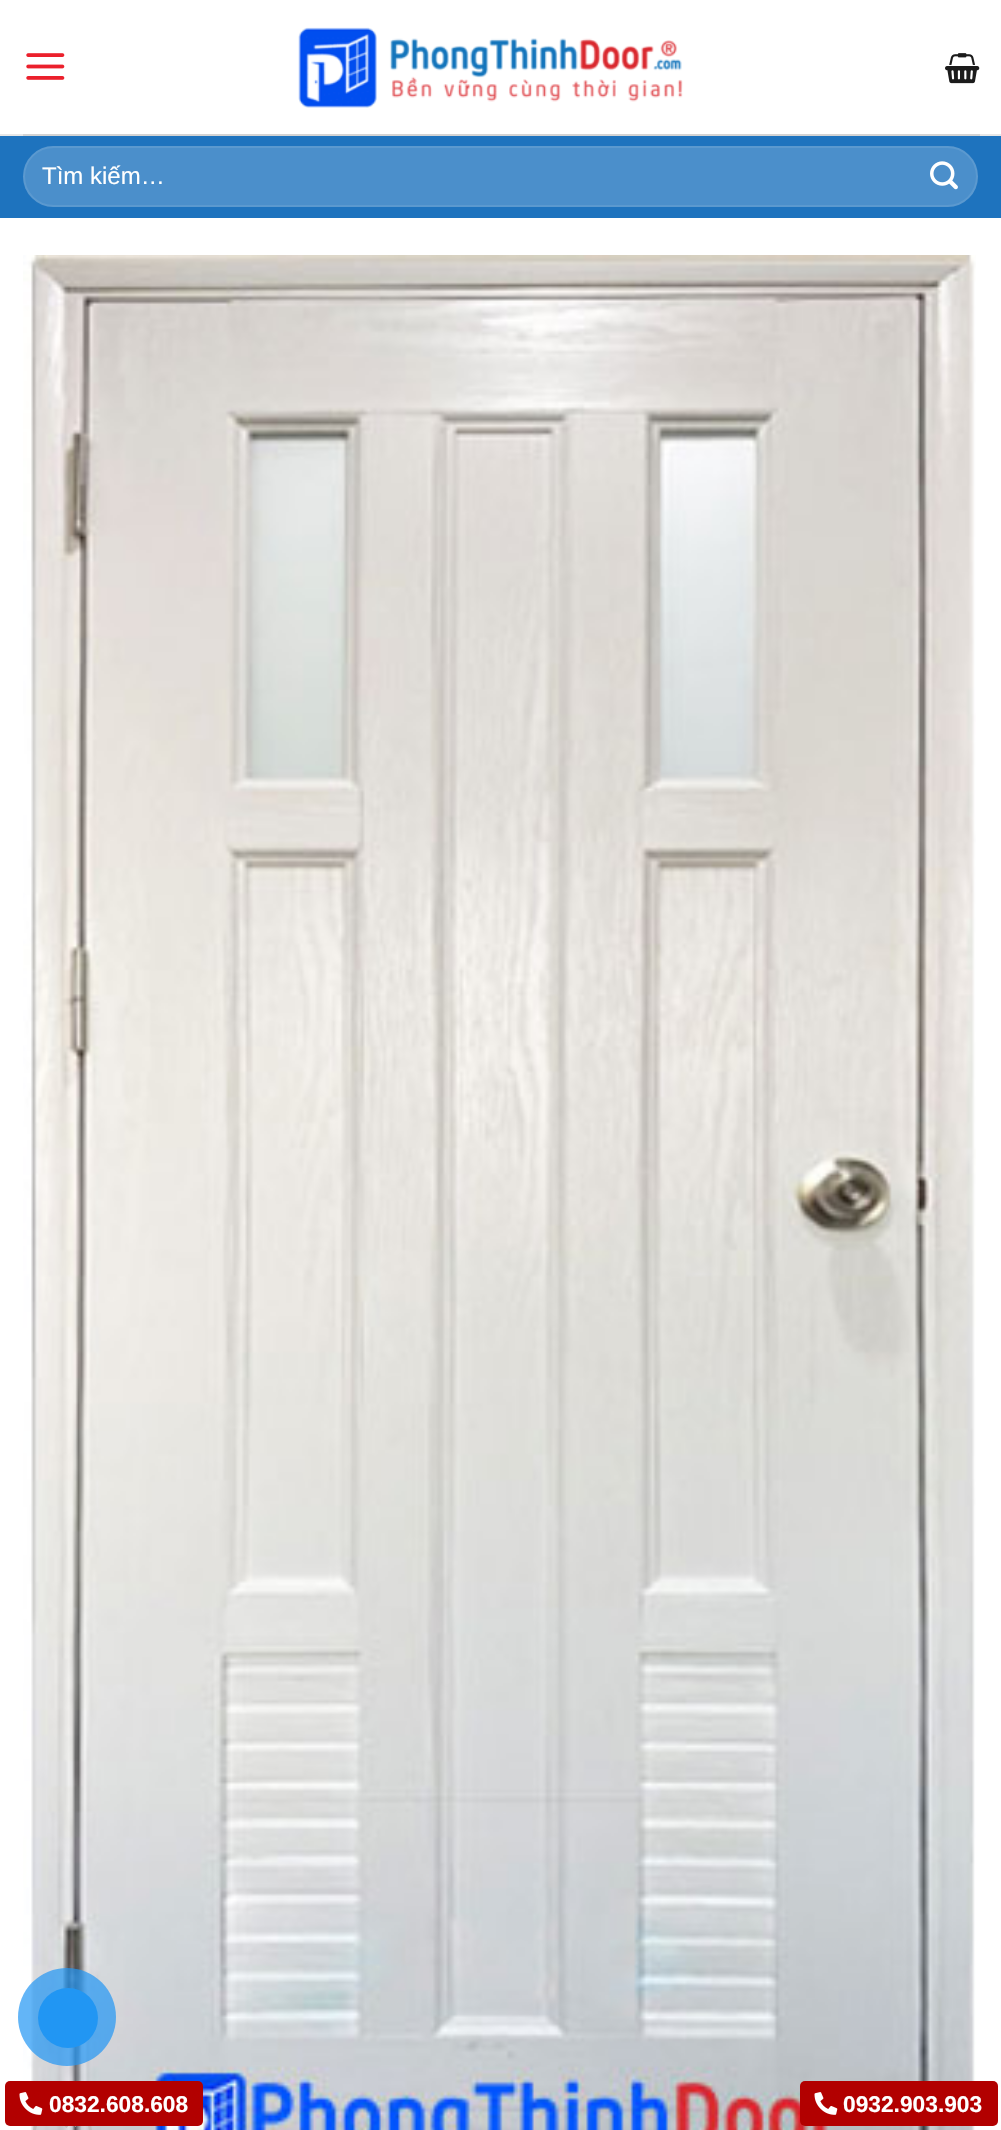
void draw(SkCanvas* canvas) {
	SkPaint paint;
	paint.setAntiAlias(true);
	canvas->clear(0xffffffff);
	paint.setColor(0xffe7e7e7);
	canvas->drawRect(SkRect::MakeXYWH(0, 134, 1001, 2), paint);
	canvas->drawImageRect(SkImages::DeferredFromEncodedData(SkData::MakeFromFileName("img1.png")), SkRect::MakeXYWH(26, 53, 39, 27), SkSamplingOptions());
	canvas->drawImageRect(SkImages::DeferredFromEncodedData(SkData::MakeFromFileName("img2.png")), SkRect::MakeXYWH(298, 27, 385, 81), SkSamplingOptions());
	canvas->drawImageRect(SkImages::DeferredFromEncodedData(SkData::MakeFromFileName("img3.png")), SkRect::MakeXYWH(945, 53, 35, 31), SkSamplingOptions());
	paint.setColor(0xffd3d3d3);
	canvas->drawRect(SkRect::MakeXYWH(23, 134, 957, 2), paint);
	paint.setColor(0xff1e73be);
	canvas->drawRect(SkRect::MakeXYWH(0, 136, 1001, 82), paint);
	paint.setColor(0xff4b8fcb);
	canvas->drawRoundRect(SkRect::MakeXYWH(23, 146, 955, 61), 30.5, 30.5, paint);
	paint.setStroke(true);
	paint.setStrokeWidth(2);
	paint.setColor(0x17ffffff);
	canvas->drawRoundRect(SkRect::MakeXYWH(24, 147, 953, 59), 29.5, 29.5, paint);
	SkFont f1(fontMgr->matchFamilyStyle("Liberation Sans", SkFontStyle::Normal()), 24);
	f1.setSubpixel(true);
	paint.setStroke(false);
	paint.setColor(0xffffffff);
	canvas->drawString("Tìm kiếm…", 42, 184, f1, paint);
	canvas->drawImageRect(SkImages::DeferredFromEncodedData(SkData::MakeFromFileName("img4.png")), SkRect::MakeXYWH(930, 161, 28, 29), SkSamplingOptions());
	canvas->drawImageRect(SkImages::DeferredFromEncodedData(SkData::MakeFromFileName("img5.png")), SkRect::MakeXYWH(23, 255, 953, 1875), SkSamplingOptions());
	paint.setStroke(true);
	paint.setStrokeWidth(3);
	paint.setColor(0xffc0c0c0);
	canvas->drawCircle(62.5, 2132.5, 28, paint);
	canvas->drawImageRect(SkImages::DeferredFromEncodedData(SkData::MakeFromFileName("img6.png")), SkRect::MakeXYWH(64, 2126, 12, 2), SkSamplingOptions());
	paint.setStroke(false);
	paint.setColor(0xb32196f3);
	canvas->drawCircle(67, 2017, 49, paint);
	paint.setColor(0xff2196f3);
	canvas->drawCircle(68, 2018, 30, paint);
	paint.setColor(0xffb20000);
	canvas->drawRoundRect(SkRect::MakeXYWH(5, 2081, 198, 45), 5, 5, paint);
	canvas->drawImageRect(SkImages::DeferredFromEncodedData(SkData::MakeFromFileName("img7.png")), SkRect::MakeXYWH(19, 2092, 24, 23), SkSamplingOptions());
	SkFont f2(fontMgr->matchFamilyStyle("Liberation Sans", SkFontStyle::Bold()), 22.75);
	f2.setSubpixel(true);
	paint.setColor(0xffffffff);
	canvas->drawString("0832.608.608", 49, 2112, f2, paint);
	paint.setColor(0xffb20000);
	canvas->drawRoundRect(SkRect::MakeXYWH(800, 2081, 198, 45), 5, 5, paint);
	canvas->drawImageRect(SkImages::DeferredFromEncodedData(SkData::MakeFromFileName("img7.png")), SkRect::MakeXYWH(814, 2092, 24, 23), SkSamplingOptions());
	paint.setColor(0xffffffff);
	canvas->drawString("0932.903.903", 843, 2112, f2, paint);
}
